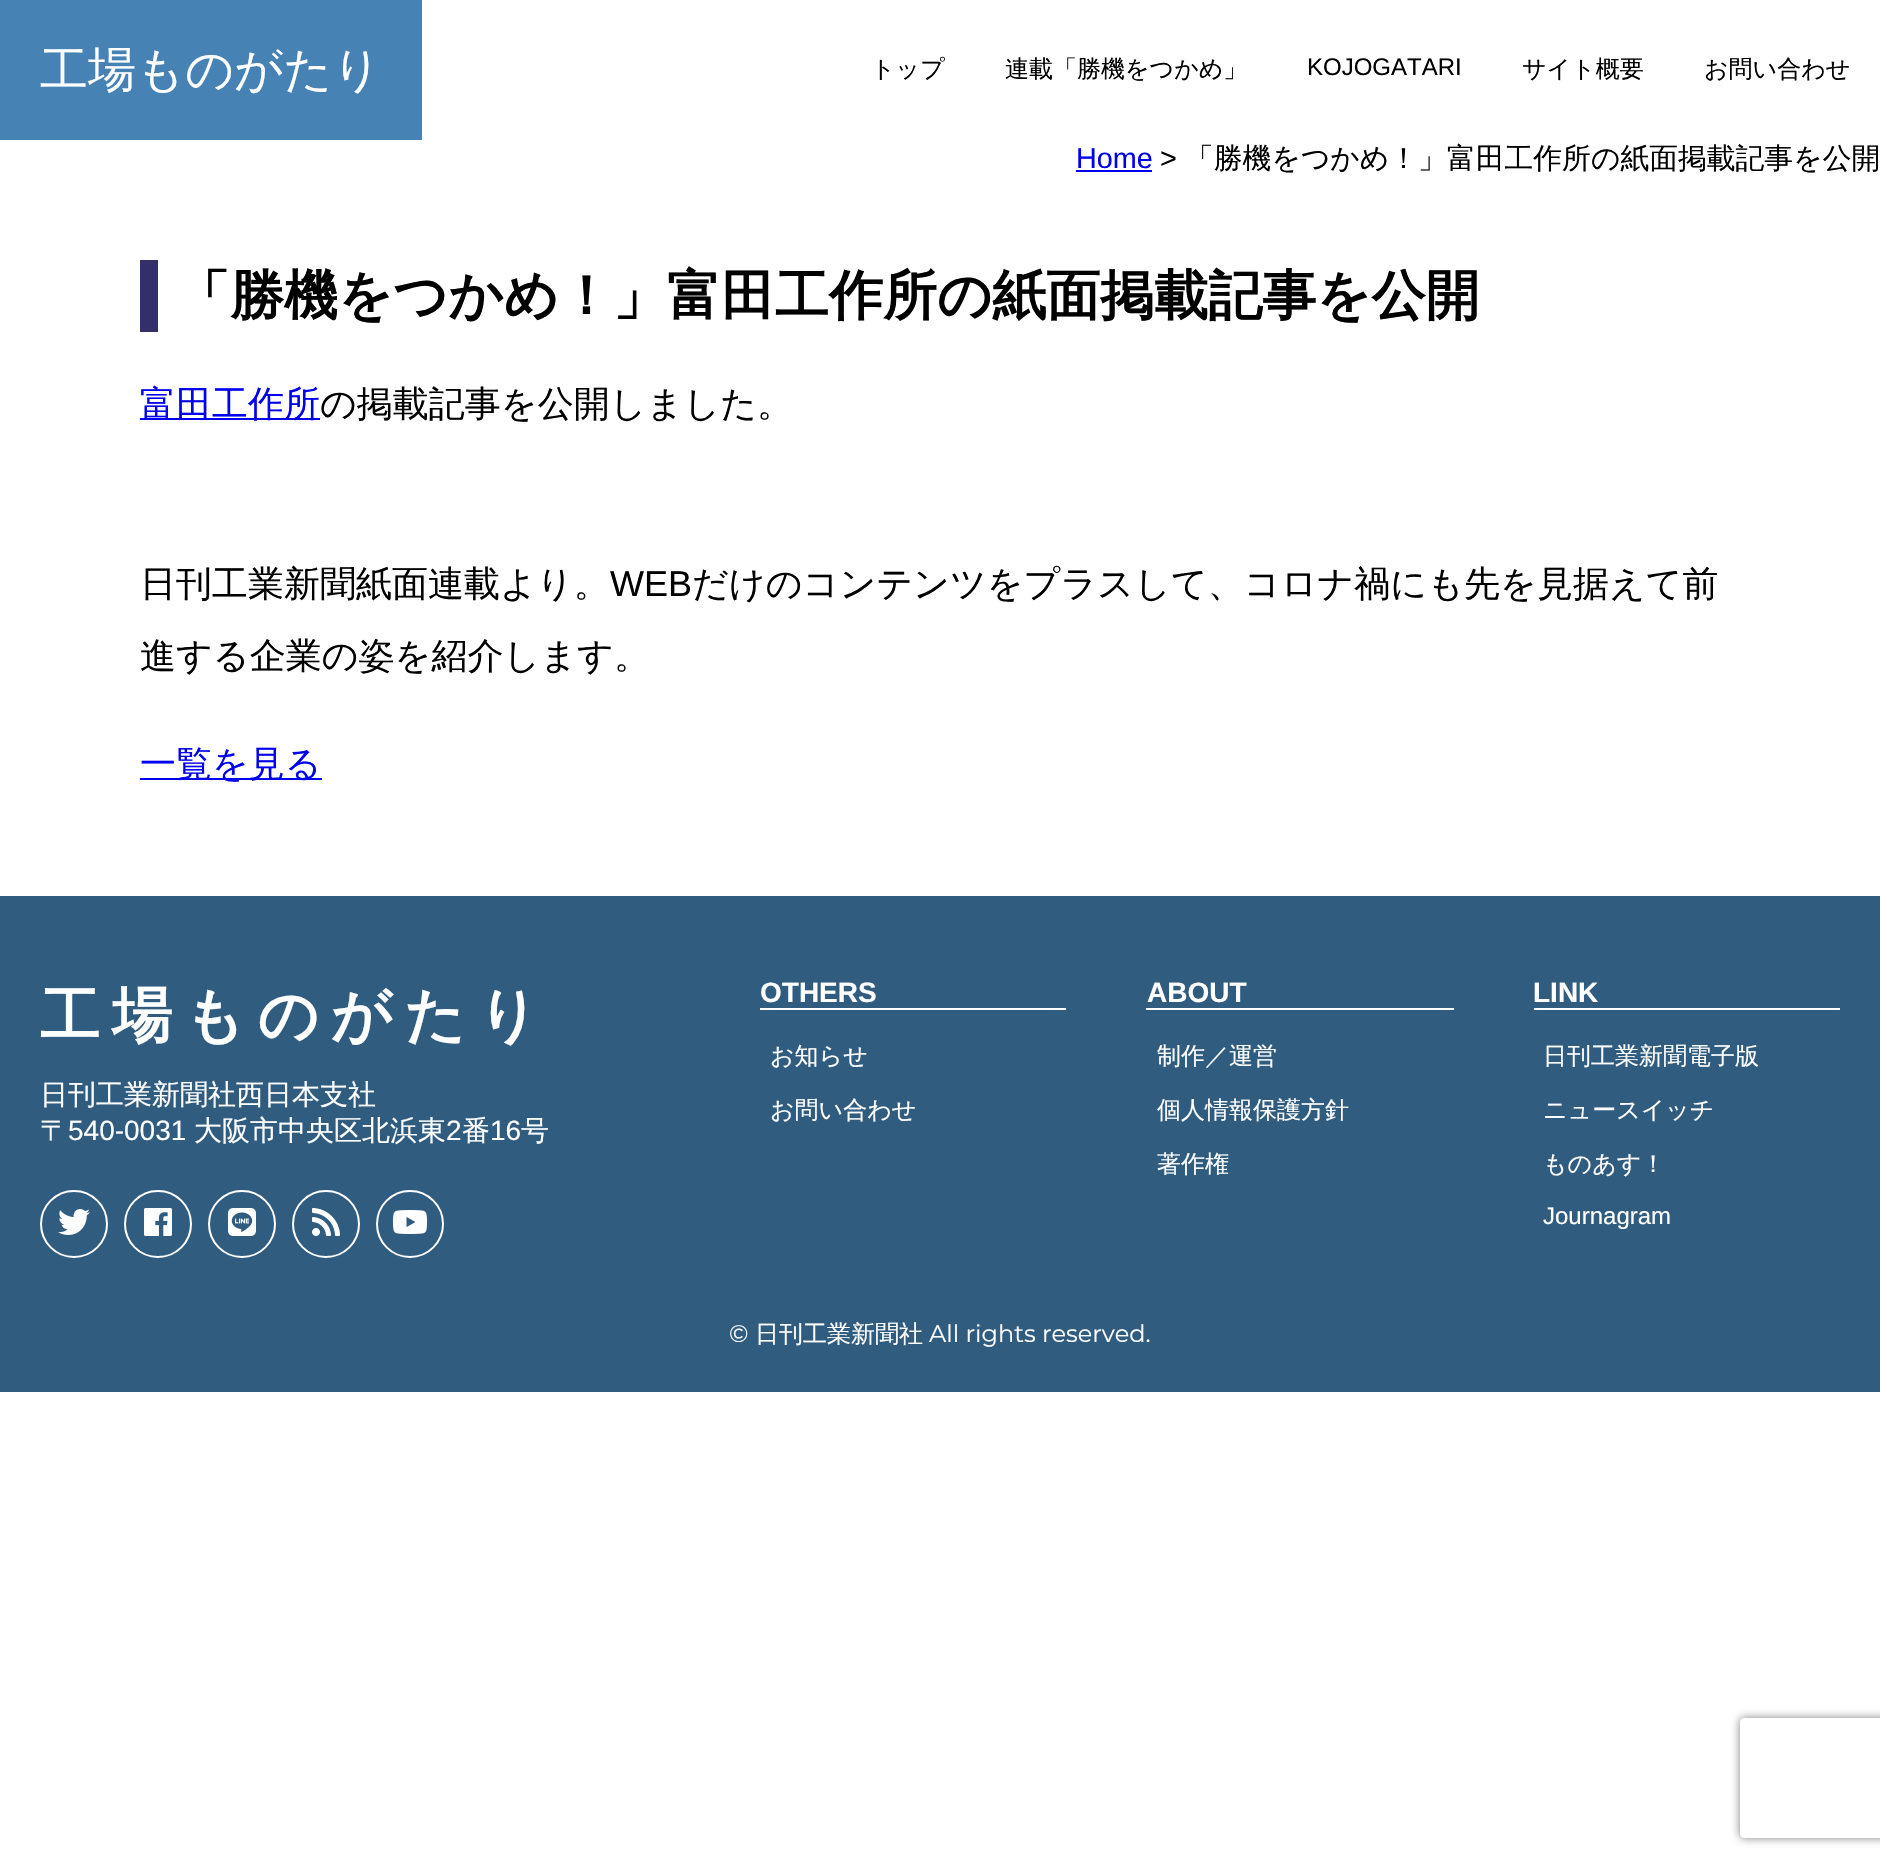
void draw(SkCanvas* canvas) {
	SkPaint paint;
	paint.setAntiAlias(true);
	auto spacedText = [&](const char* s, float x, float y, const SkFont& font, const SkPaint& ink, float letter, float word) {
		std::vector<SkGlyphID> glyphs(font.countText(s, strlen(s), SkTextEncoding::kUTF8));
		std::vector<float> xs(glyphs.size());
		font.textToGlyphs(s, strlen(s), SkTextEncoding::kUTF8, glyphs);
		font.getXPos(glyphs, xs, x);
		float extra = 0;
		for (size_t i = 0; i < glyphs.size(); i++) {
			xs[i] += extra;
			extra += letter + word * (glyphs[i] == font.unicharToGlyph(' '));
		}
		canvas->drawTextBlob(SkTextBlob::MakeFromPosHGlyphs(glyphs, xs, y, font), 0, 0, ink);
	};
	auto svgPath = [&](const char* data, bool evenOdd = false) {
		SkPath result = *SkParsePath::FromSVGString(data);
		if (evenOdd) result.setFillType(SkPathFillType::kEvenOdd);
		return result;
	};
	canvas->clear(0xffffffff);
	paint.setColor(0xff4682b4);
	canvas->drawRect(SkRect::MakeXYWH(0, 0, 422, 140), paint);
	SkFont f1(fontMgr->matchFamilyStyle("WenQuanYi Zen Hei", SkFontStyle(500, SkFontStyle::kNormal_Width, SkFontStyle::kUpright_Slant)), 48);
	f1.setSubpixel(true);
	paint.setColor(0xffffffff);
	canvas->drawString("工場ものがたり", 40, 86, f1, paint);
	SkFont f2(fontMgr->matchFamilyStyle("WenQuanYi Zen Hei", SkFontStyle(500, SkFontStyle::kNormal_Width, SkFontStyle::kUpright_Slant)), 24);
	f2.setSubpixel(true);
	paint.setColor(0xff000000);
	canvas->drawString("トップ", 871, 77, f2, paint);
	canvas->drawString("連載「勝機をつかめ」", 1005, 77, f2, paint);
	SkFont f3(fontMgr->matchFamilyStyle("Liberation Sans", SkFontStyle::Normal()), 24);
	f3.setSubpixel(true);
	canvas->drawString("KOJOGATARI", 1307, 75, f3, paint);
	canvas->drawString("サイト概要", 1522, 77, f2, paint);
	canvas->drawString("お問い合わせ", 1704, 77, f2, paint);
	SkFont f4(fontMgr->matchFamilyStyle("Liberation Sans", SkFontStyle::Normal()), 28.8);
	f4.setSubpixel(true);
	paint.setColor(0xff0000ee);
	canvas->drawString("Home", 1076, 168, f4, paint);
	canvas->drawRect(SkRect::MakeXYWH(1076, 170, 76, 2), paint);
	paint.setColor(0xff000000);
	canvas->drawString(">", 1160, 168, f4, paint);
	SkFont f5(fontMgr->matchFamilyStyle("WenQuanYi Zen Hei", SkFontStyle(500, SkFontStyle::kNormal_Width, SkFontStyle::kUpright_Slant)), 28.8);
	f5.setSubpixel(true);
	canvas->drawString("「勝機をつかめ！」富田工作所の紙面掲載記事を公開", 1185, 168, f5, paint);
	paint.setColor(0xff333069);
	canvas->drawRect(SkRect::MakeXYWH(140, 260, 18, 72), paint);
	SkFont f6(fontMgr->matchFamilyStyle("WenQuanYi Zen Hei", SkFontStyle::Bold()), 54);
	f6.setSubpixel(true);
	paint.setColor(0xff000000);
	canvas->drawString("「勝機をつかめ！」富田工作所の紙面掲載記事を公開", 176, 314, f6, paint);
	paint.setColor(0xff0000ee);
	canvas->drawRect(SkRect::MakeXYWH(140, 418, 180, 2), paint);
	SkFont f7(fontMgr->matchFamilyStyle("WenQuanYi Zen Hei", SkFontStyle(500, SkFontStyle::kNormal_Width, SkFontStyle::kUpright_Slant)), 36);
	f7.setSubpixel(true);
	canvas->drawString("富田工作所", 140, 416, f7, paint);
	paint.setColor(0xff000000);
	canvas->drawString("の掲載記事を公開しました。", 320, 416, f7, paint);
	canvas->drawString("日刊工業新聞紙面連載より。", 140, 596, f7, paint);
	SkFont f8(fontMgr->matchFamilyStyle("Liberation Sans", SkFontStyle::Normal()), 36);
	f8.setSubpixel(true);
	canvas->drawString("WEB", 610, 596, f8, paint);
	canvas->drawString("だけのコンテンツをプラスして、コロナ禍にも先を見据えて前", 692, 596, f7, paint);
	canvas->drawString("進する企業の姿を紹介します。", 140, 668, f7, paint);
	paint.setColor(0xff0000ee);
	canvas->drawRect(SkRect::MakeXYWH(140, 778, 182, 2), paint);
	canvas->drawString("一覧を見る", 140, 776, f7, paint);
	paint.setColor(0xff305c80);
	canvas->drawRect(SkRect::MakeXYWH(0, 896, 1880, 496), paint);
	SkFont f9(fontMgr->matchFamilyStyle("WenQuanYi Zen Hei", SkFontStyle::Bold()), 60);
	f9.setSubpixel(true);
	paint.setColor(0xffffffff);
	spacedText("工場ものがたり", 40, 1036, f9, paint, 12, 0);
	SkFont f10(fontMgr->matchFamilyStyle("WenQuanYi Zen Hei", SkFontStyle(500, SkFontStyle::kNormal_Width, SkFontStyle::kUpright_Slant)), 28);
	f10.setSubpixel(true);
	canvas->drawString("日刊工業新聞社西日本支社", 40, 1104, f10, paint);
	canvas->drawString("〒", 40, 1140, f10, paint);
	SkFont f11(fontMgr->matchFamilyStyle("Liberation Sans", SkFontStyle::Normal()), 28);
	f11.setSubpixel(true);
	canvas->drawString("540-0031", 68, 1140, f11, paint);
	canvas->drawString("大阪市中央区北浜東", 194, 1140, f10, paint);
	canvas->drawString("2", 446, 1140, f11, paint);
	canvas->drawString("番", 462, 1140, f10, paint);
	canvas->drawString("16", 490, 1140, f11, paint);
	canvas->drawString("号", 521, 1140, f10, paint);
	paint.setStroke(true);
	paint.setStrokeWidth(2);
	canvas->drawCircle(74, 1224, 33, paint);
	canvas->drawImageRect(SkImages::DeferredFromEncodedData(SkData::MakeFromFileName("img1.png")), SkRect::MakeXYWH(58, 1209, 32, 26), SkSamplingOptions());
	canvas->drawCircle(158, 1224, 33, paint);
	canvas->drawImageRect(SkImages::DeferredFromEncodedData(SkData::MakeFromFileName("img2.png")), SkRect::MakeXYWH(144, 1208, 28, 28), SkSamplingOptions());
	canvas->drawCircle(242, 1224, 33, paint);
	canvas->drawImageRect(SkImages::DeferredFromEncodedData(SkData::MakeFromFileName("img3.png")), SkRect::MakeXYWH(228, 1208, 28, 28), SkSamplingOptions());
	canvas->drawCircle(326, 1224, 33, paint);
	canvas->drawImageRect(SkImages::DeferredFromEncodedData(SkData::MakeFromFileName("img4.png")), SkRect::MakeXYWH(312, 1208, 28, 28), SkSamplingOptions());
	canvas->drawCircle(410, 1224, 33, paint);
	canvas->drawImageRect(SkImages::DeferredFromEncodedData(SkData::MakeFromFileName("img5.png")), SkRect::MakeXYWH(392, 1210, 36, 24), SkSamplingOptions());
	paint.setStroke(false);
	canvas->drawRect(SkRect::MakeXYWH(760, 1008, 306, 2), paint);
	SkFont f12(fontMgr->matchFamilyStyle("Liberation Sans", SkFontStyle::Bold()), 28);
	f12.setSubpixel(true);
	canvas->drawString("OTHERS", 760, 1002, f12, paint);
	canvas->drawString("お知らせ", 770, 1064, f2, paint);
	canvas->drawString("お問い合わせ", 770, 1118, f2, paint);
	canvas->drawRect(SkRect::MakeXYWH(1146, 1008, 308, 2), paint);
	canvas->drawString("ABOUT", 1147, 1002, f12, paint);
	canvas->drawString("制作／運営", 1157, 1064, f2, paint);
	canvas->drawString("個人情報保護方針", 1157, 1118, f2, paint);
	canvas->drawString("著作権", 1157, 1172, f2, paint);
	canvas->drawRect(SkRect::MakeXYWH(1534, 1008, 306, 2), paint);
	canvas->drawString("LINK", 1533, 1002, f12, paint);
	canvas->drawString("日刊工業新聞電子版", 1543, 1064, f2, paint);
	canvas->drawString("ニュースイッチ", 1543, 1118, f2, paint);
	canvas->drawString("ものあす！", 1543, 1172, f2, paint);
	canvas->drawString("Journagram", 1543, 1224, f3, paint);
	SkFont f13(fontMgr->matchFamilyStyle("Montserrat", SkFontStyle(100, SkFontStyle::kNormal_Width, SkFontStyle::kUpright_Slant)), 24);
	f13.setSubpixel(true);
	canvas->drawString("©", 729, 1342, f13, paint);
	canvas->drawString("日刊工業新聞社", 755, 1342, f2, paint);
	canvas->drawString("All rights reserved.", 929, 1342, f13, paint);
	canvas->save();
	canvas->clipPath(svgPath("M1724 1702H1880V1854H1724ZM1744 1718H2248C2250 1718 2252 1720 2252 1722V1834C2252 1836 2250 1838 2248 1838H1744C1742 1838 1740 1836 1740 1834V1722C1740 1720 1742 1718 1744 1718Z", true), true);
	paint.setColor(0xff808080);
	paint.setMaskFilter(SkMaskFilter::MakeBlur(kNormal_SkBlurStyle, 5));
	canvas->drawRoundRect(SkRect::MakeXYWH(1740, 1718, 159, 120), 4, 4, paint);
	paint.setMaskFilter(nullptr);
	canvas->restore();
}
